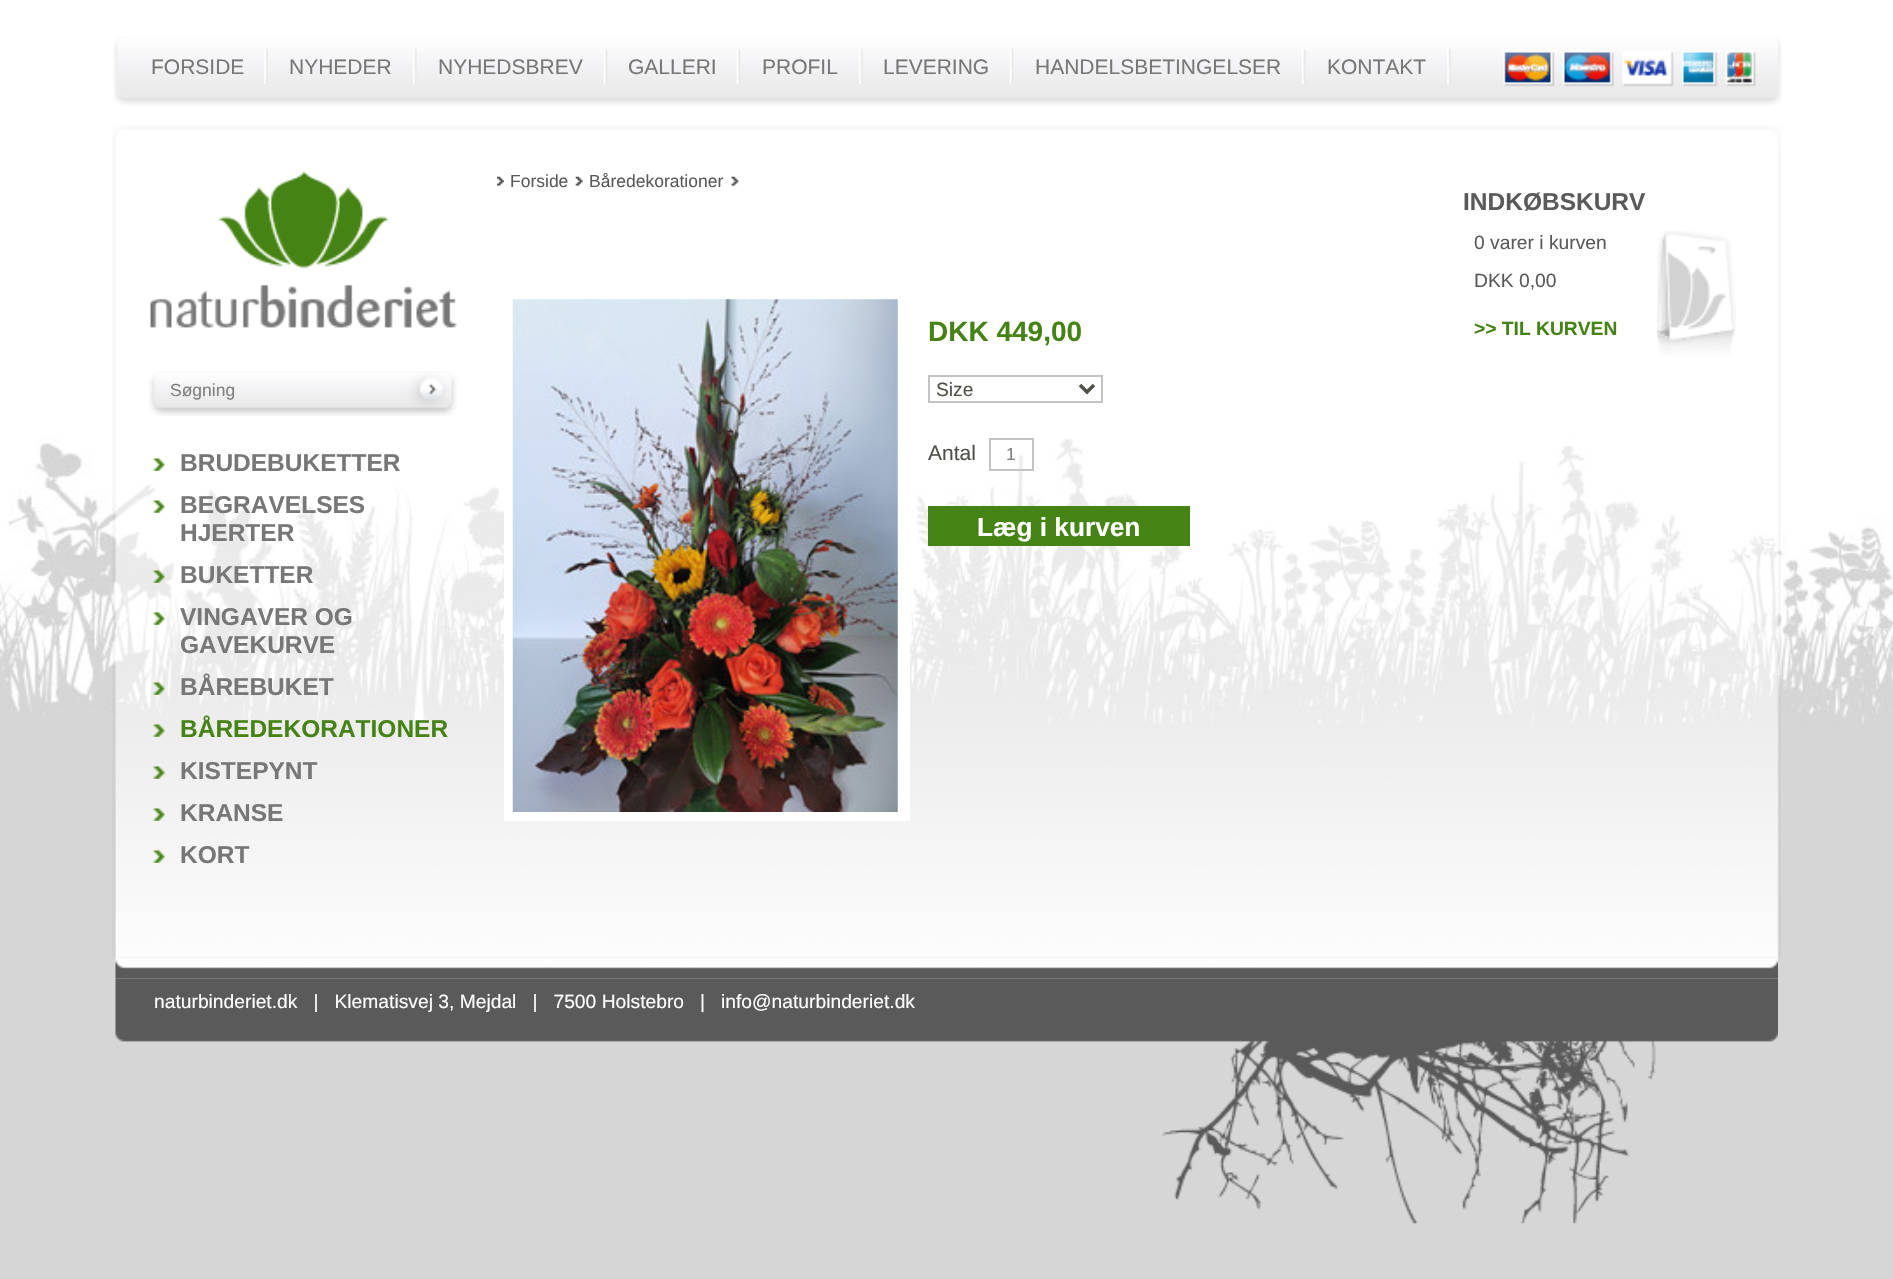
void draw(SkCanvas* canvas) {
	SkPaint paint;
	paint.setAntiAlias(true);
	auto svgPath = [&](const char* data, bool evenOdd = false) {
		SkPath result = *SkParsePath::FromSVGString(data);
		if (evenOdd) result.setFillType(SkPathFillType::kEvenOdd);
		return result;
	};
	canvas->clear(0xffd6d6d6);
	canvas->drawImageRect(SkImages::DeferredFromEncodedData(SkData::MakeFromFileName("img1.png")), SkRect::MakeXYWH(0, 0, 1893, 436), SkSamplingOptions());
	canvas->drawImageRect(SkImages::DeferredFromEncodedData(SkData::MakeFromFileName("img2.png")), SkRect::MakeXYWH(0, 436, 1893, 291), SkSamplingOptions());
	canvas->drawImageRect(SkImages::DeferredFromEncodedData(SkData::MakeFromFileName("img3.png")), SkRect::MakeXYWH(115, 957, 1663, 22), SkSamplingOptions());
	canvas->drawImageRect(SkImages::DeferredFromEncodedData(SkData::MakeFromFileName("img4.png")), SkRect::MakeXYWH(113, 36, 1669, 70), SkSamplingOptions());
	canvas->drawImageRect(SkImages::DeferredFromEncodedData(SkData::MakeFromFileName("img5.png")), SkRect::MakeXYWH(264, 49, 4, 35), SkSamplingOptions());
	SkFont f1(fontMgr->matchFamilyStyle("Liberation Sans", SkFontStyle::Normal()), 21);
	f1.setSubpixel(true);
	paint.setColor(0xff777777);
	canvas->drawString("FORSIDE", 151, 74, f1, paint);
	canvas->drawImageRect(SkImages::DeferredFromEncodedData(SkData::MakeFromFileName("img6.png")), SkRect::MakeXYWH(413, 49, 4, 35), SkSamplingOptions());
	canvas->drawString("NYHEDER", 289, 74, f1, paint);
	canvas->drawImageRect(SkImages::DeferredFromEncodedData(SkData::MakeFromFileName("img7.png")), SkRect::MakeXYWH(603, 49, 5, 35), SkSamplingOptions());
	canvas->drawString("NYHEDSBREV", 438, 74, f1, paint);
	canvas->drawImageRect(SkImages::DeferredFromEncodedData(SkData::MakeFromFileName("img7.png")), SkRect::MakeXYWH(736, 49, 5, 35), SkSamplingOptions());
	canvas->drawString("GALLERI", 628, 74, f1, paint);
	canvas->drawImageRect(SkImages::DeferredFromEncodedData(SkData::MakeFromFileName("img5.png")), SkRect::MakeXYWH(859, 49, 4, 35), SkSamplingOptions());
	canvas->drawString("PROFIL", 762, 74, f1, paint);
	canvas->drawImageRect(SkImages::DeferredFromEncodedData(SkData::MakeFromFileName("img8.png")), SkRect::MakeXYWH(1009, 49, 5, 35), SkSamplingOptions());
	canvas->drawString("LEVERING", 883, 74, f1, paint);
	canvas->drawImageRect(SkImages::DeferredFromEncodedData(SkData::MakeFromFileName("img6.png")), SkRect::MakeXYWH(1302, 49, 4, 35), SkSamplingOptions());
	canvas->drawString("HANDELSBETINGELSER", 1035, 74, f1, paint);
	canvas->drawImageRect(SkImages::DeferredFromEncodedData(SkData::MakeFromFileName("img5.png")), SkRect::MakeXYWH(1447, 49, 4, 35), SkSamplingOptions());
	canvas->drawString("KONTAKT", 1327, 74, f1, paint);
	canvas->drawImageRect(SkImages::DeferredFromEncodedData(SkData::MakeFromFileName("img9.png")), SkRect::MakeXYWH(112, 125, 1669, 832), SkSamplingOptions());
	canvas->drawImageRect(SkImages::DeferredFromEncodedData(SkData::MakeFromFileName("img10.png")), SkRect::MakeXYWH(497, 176, 7, 10), SkSamplingOptions());
	SkFont f2(fontMgr->matchFamilyStyle("Liberation Sans", SkFontStyle::Normal()), 17.5);
	f2.setSubpixel(true);
	paint.setColor(0xff5a5a5a);
	canvas->drawString("Forside", 510, 187, f2, paint);
	canvas->drawImageRect(SkImages::DeferredFromEncodedData(SkData::MakeFromFileName("img11.png")), SkRect::MakeXYWH(575, 176, 8, 10), SkSamplingOptions());
	canvas->drawString("Båredekorationer", 589, 187, f2, paint);
	canvas->drawImageRect(SkImages::DeferredFromEncodedData(SkData::MakeFromFileName("img12.png")), SkRect::MakeXYWH(731, 176, 8, 10), SkSamplingOptions());
	paint.setColor(0xffffffff);
	canvas->drawRect(SkRect::MakeXYWH(504, 442, 406, 379), paint);
	canvas->drawImageRect(SkImages::DeferredFromEncodedData(SkData::MakeFromFileName("img13.png")), SkRect::MakeXYWH(512, 299, 386, 513), SkSamplingOptions());
	SkFont f3(fontMgr->matchFamilyStyle("Liberation Sans", SkFontStyle::Bold()), 28);
	f3.setSubpixel(true);
	paint.setColor(0xff468315);
	canvas->drawString("DKK 449,00", 928, 341, f3, paint);
	paint.setStroke(true);
	paint.setStrokeWidth(2);
	paint.setColor(0xffc3c3c3);
	canvas->drawRect(SkRect::MakeXYWH(929, 376, 173, 26), paint);
	paint.setStrokeWidth(3.5);
	paint.setColor(0xff515049);
	canvas->drawPath(svgPath("M1080 385L1087 392L1094 385"), paint);
	SkFont f4(fontMgr->matchFamilyStyle("Liberation Sans", SkFontStyle::Normal()), 19.25);
	f4.setSubpixel(true);
	paint.setStroke(false);
	canvas->drawString("Size", 936, 396, f4, paint);
	canvas->drawString("Antal", 928, 460, f1, paint);
	paint.setStroke(true);
	paint.setStrokeWidth(2);
	paint.setColor(0xffc3c3c3);
	canvas->drawRect(SkRect::MakeXYWH(990, 439, 43, 31), paint);
	paint.setStroke(false);
	paint.setColor(0xff7f7f7f);
	canvas->drawString("1", 1006, 460, f2, paint);
	paint.setColor(0xff468315);
	canvas->drawRect(SkRect::MakeXYWH(928, 506, 262, 40), paint);
	SkFont f5(fontMgr->matchFamilyStyle("Liberation Sans", SkFontStyle::Bold()), 26.25);
	f5.setSubpixel(true);
	paint.setColor(0xffffffff);
	canvas->drawString("Læg i kurven", 977, 536, f5, paint);
	canvas->drawImageRect(SkImages::DeferredFromEncodedData(SkData::MakeFromFileName("img14.png")), SkRect::MakeXYWH(1657, 231, 79, 125), SkSamplingOptions());
	SkFont f6(fontMgr->matchFamilyStyle("Liberation Sans", SkFontStyle::Bold()), 24.5);
	f6.setSubpixel(true);
	paint.setColor(0xff5a5a5a);
	canvas->drawString("INDKØBSKURV", 1463, 210, f6, paint);
	canvas->drawString("0 varer i kurven", 1474, 249, f4, paint);
	canvas->drawString("DKK 0,00", 1474, 287, f4, paint);
	SkFont f7(fontMgr->matchFamilyStyle("Liberation Sans", SkFontStyle::Bold()), 19.25);
	f7.setSubpixel(true);
	paint.setColor(0xff468315);
	canvas->drawString(">> TIL KURVEN", 1474, 335, f7, paint);
	canvas->drawImageRect(SkImages::DeferredFromEncodedData(SkData::MakeFromFileName("img15.png")), SkRect::MakeXYWH(150, 171, 308, 157), SkSamplingOptions());
	canvas->drawImageRect(SkImages::DeferredFromEncodedData(SkData::MakeFromFileName("img16.png")), SkRect::MakeXYWH(149, 371, 308, 45), SkSamplingOptions());
	paint.setColor(0xff7f7f7f);
	canvas->drawString("Søgning", 170, 396, f2, paint);
	canvas->drawImageRect(SkImages::DeferredFromEncodedData(SkData::MakeFromFileName("img17.png")), SkRect::MakeXYWH(152, 458, 13, 13), SkSamplingOptions());
	paint.setColor(0xff777777);
	canvas->drawString("BRUDEBUKETTER", 180, 471, f6, paint);
	canvas->drawImageRect(SkImages::DeferredFromEncodedData(SkData::MakeFromFileName("img18.png")), SkRect::MakeXYWH(152, 500, 13, 13), SkSamplingOptions());
	canvas->drawString("BEGRAVELSES", 180, 513, f6, paint);
	canvas->drawString("HJERTER", 180, 541, f6, paint);
	canvas->drawImageRect(SkImages::DeferredFromEncodedData(SkData::MakeFromFileName("img19.png")), SkRect::MakeXYWH(152, 570, 13, 13), SkSamplingOptions());
	canvas->drawString("BUKETTER", 180, 583, f6, paint);
	canvas->drawImageRect(SkImages::DeferredFromEncodedData(SkData::MakeFromFileName("img20.png")), SkRect::MakeXYWH(152, 612, 13, 13), SkSamplingOptions());
	canvas->drawString("VINGAVER OG", 180, 625, f6, paint);
	canvas->drawString("GAVEKURVE", 180, 653, f6, paint);
	canvas->drawImageRect(SkImages::DeferredFromEncodedData(SkData::MakeFromFileName("img21.png")), SkRect::MakeXYWH(152, 682, 13, 13), SkSamplingOptions());
	canvas->drawString("BÅREBUKET", 180, 695, f6, paint);
	canvas->drawImageRect(SkImages::DeferredFromEncodedData(SkData::MakeFromFileName("img22.png")), SkRect::MakeXYWH(152, 724, 13, 13), SkSamplingOptions());
	paint.setColor(0xff468315);
	canvas->drawString("BÅREDEKORATIONER", 180, 737, f6, paint);
	canvas->drawImageRect(SkImages::DeferredFromEncodedData(SkData::MakeFromFileName("img23.png")), SkRect::MakeXYWH(152, 766, 13, 13), SkSamplingOptions());
	paint.setColor(0xff777777);
	canvas->drawString("KISTEPYNT", 180, 779, f6, paint);
	canvas->drawImageRect(SkImages::DeferredFromEncodedData(SkData::MakeFromFileName("img24.png")), SkRect::MakeXYWH(152, 808, 13, 13), SkSamplingOptions());
	canvas->drawString("KRANSE", 180, 821, f6, paint);
	canvas->drawImageRect(SkImages::DeferredFromEncodedData(SkData::MakeFromFileName("img25.png")), SkRect::MakeXYWH(152, 850, 13, 13), SkSamplingOptions());
	canvas->drawString("KORT", 180, 863, f6, paint);
	paint.setColor(0xffd6d6d6);
	canvas->drawRect(SkRect::MakeXYWH(116, 978, 1662, 1), paint);
	canvas->drawImageRect(SkImages::DeferredFromEncodedData(SkData::MakeFromFileName("img26.png")), SkRect::MakeXYWH(115, 978, 1663, 246), SkSamplingOptions());
	paint.setColor(0xffffffff);
	canvas->drawString("naturbinderiet.dk   |   Klematisvej 3, Mejdal   |   7500 Holstebro   |", 154, 1008, f4, paint);
	canvas->drawString("info@naturbinderiet.dk", 721, 1008, f4, paint);
}
